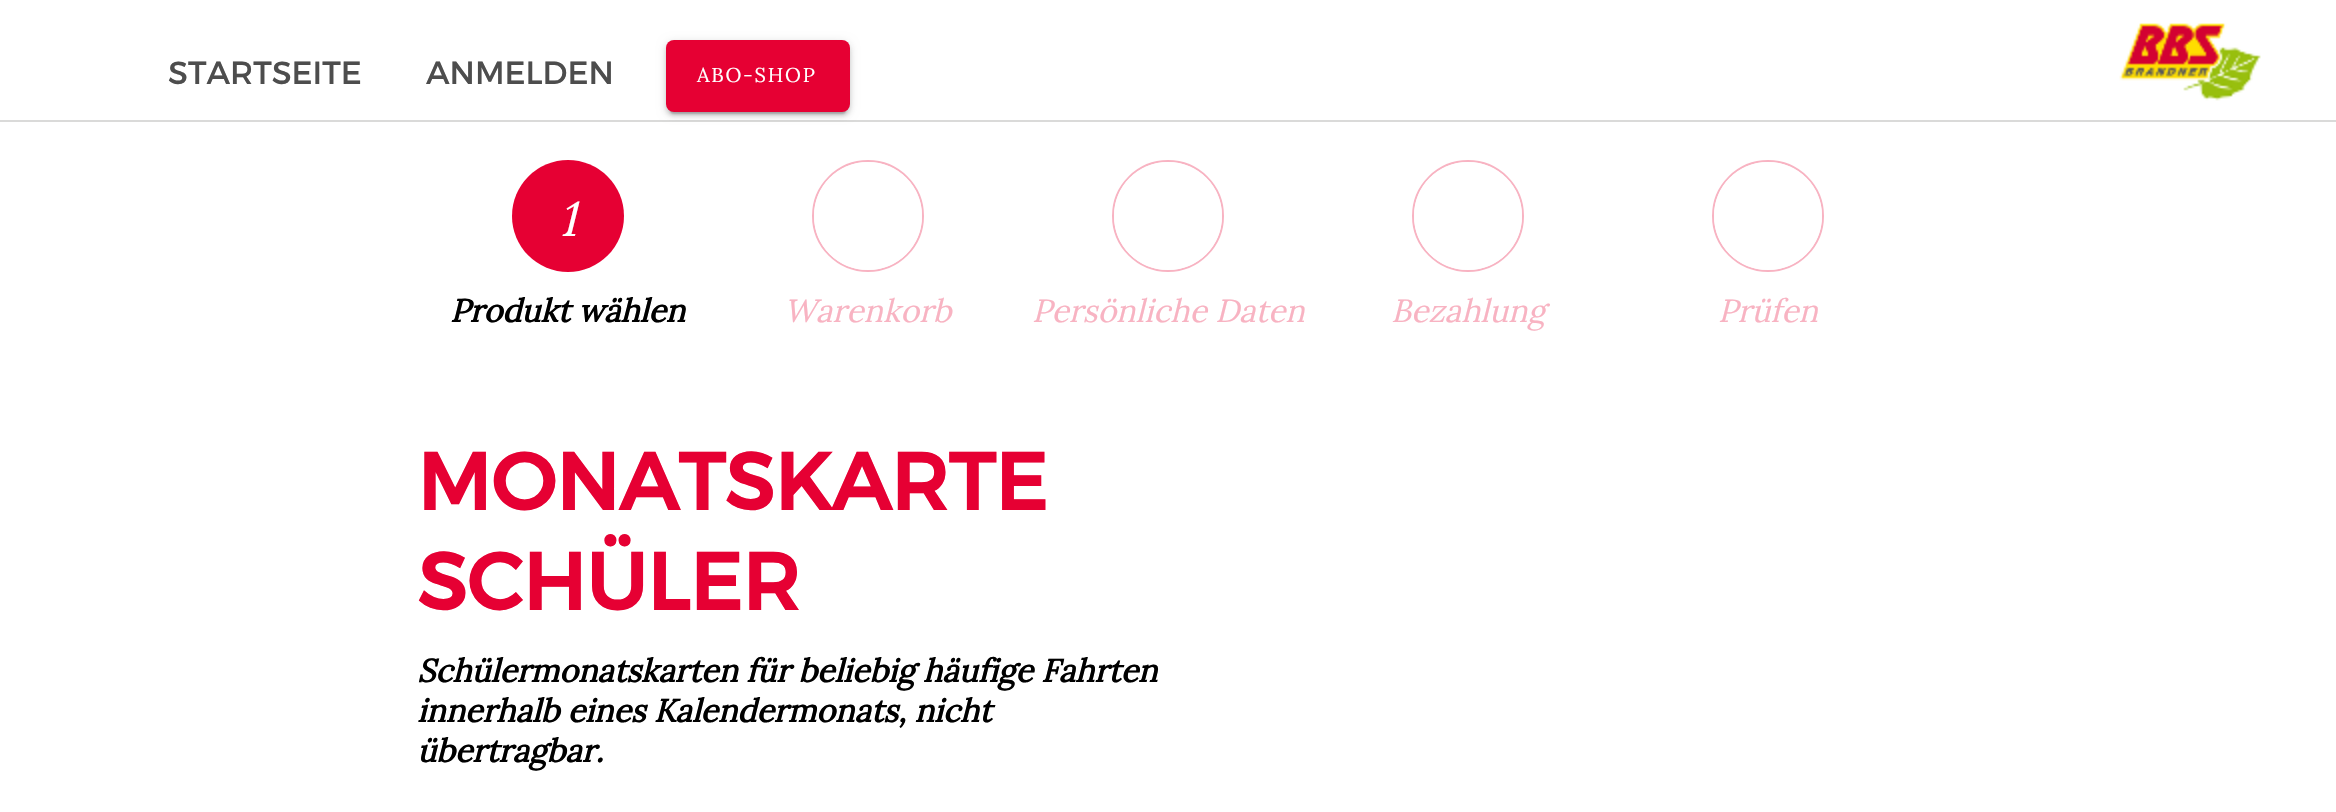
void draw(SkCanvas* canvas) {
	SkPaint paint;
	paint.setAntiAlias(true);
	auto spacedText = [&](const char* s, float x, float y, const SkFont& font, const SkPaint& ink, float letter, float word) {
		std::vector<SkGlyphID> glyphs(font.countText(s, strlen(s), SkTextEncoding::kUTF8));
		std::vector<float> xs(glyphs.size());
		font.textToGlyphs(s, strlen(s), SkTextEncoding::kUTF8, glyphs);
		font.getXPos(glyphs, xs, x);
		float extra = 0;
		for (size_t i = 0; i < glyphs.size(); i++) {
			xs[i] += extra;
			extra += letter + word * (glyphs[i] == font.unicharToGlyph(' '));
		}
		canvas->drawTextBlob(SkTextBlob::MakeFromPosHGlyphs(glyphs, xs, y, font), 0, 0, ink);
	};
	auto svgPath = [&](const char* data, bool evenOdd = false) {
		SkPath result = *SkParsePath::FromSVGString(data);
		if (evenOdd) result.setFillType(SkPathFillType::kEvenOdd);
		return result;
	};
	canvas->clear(0xffffffff);
	paint.setStroke(true);
	paint.setStrokeWidth(2);
	paint.setColor(0xfff8b3c2);
	canvas->drawCircle(868, 216, 55, paint);
	canvas->save();
	canvas->clipPath(svgPath("M868 162C898 162 922 186 922 216C922 246 898 270 868 270C838 270 814 246 814 216C814 186 838 162 868 162Z"), true);
	paint.setStroke(false);
	paint.setColor(0xffffffff);
	canvas->drawCircle(868, 216, 108, paint);
	canvas->restore();
	paint.setStroke(true);
	paint.setColor(0xfff8b3c2);
	canvas->drawCircle(1168, 216, 55, paint);
	canvas->save();
	canvas->clipPath(svgPath("M1168 162C1198 162 1222 186 1222 216C1222 246 1198 270 1168 270C1138 270 1114 246 1114 216C1114 186 1138 162 1168 162Z"), true);
	paint.setStroke(false);
	paint.setColor(0xffffffff);
	canvas->drawCircle(1168, 216, 108, paint);
	canvas->restore();
	paint.setStroke(true);
	paint.setColor(0xfff8b3c2);
	canvas->drawCircle(1468, 216, 55, paint);
	canvas->save();
	canvas->clipPath(svgPath("M1468 162C1498 162 1522 186 1522 216C1522 246 1498 270 1468 270C1438 270 1414 246 1414 216C1414 186 1438 162 1468 162Z"), true);
	paint.setStroke(false);
	paint.setColor(0xffffffff);
	canvas->drawCircle(1468, 216, 108, paint);
	canvas->restore();
	paint.setStroke(true);
	paint.setColor(0xfff8b3c2);
	canvas->drawCircle(1768, 216, 55, paint);
	canvas->save();
	canvas->clipPath(svgPath("M1768 162C1798 162 1822 186 1822 216C1822 246 1798 270 1768 270C1738 270 1714 246 1714 216C1714 186 1738 162 1768 162Z"), true);
	paint.setStroke(false);
	paint.setColor(0xffffffff);
	canvas->drawCircle(1768, 216, 108, paint);
	canvas->restore();
	paint.setColor(0xffdadad9);
	canvas->drawRect(SkRect::MakeXYWH(0, 120, 2336, 2), paint);
	SkFont f1(fontMgr->matchFamilyStyle("Montserrat", SkFontStyle::Normal()), 32);
	f1.setSubpixel(true);
	paint.setColor(0xff4d4d4d);
	canvas->drawString("STARTSEITE", 168, 84, f1, paint);
	canvas->drawString("ANMELDEN", 426, 84, f1, paint);
	paint.setColor(0x1f000000);
	paint.setMaskFilter(SkMaskFilter::MakeBlur(kNormal_SkBlurStyle, 5));
	canvas->drawRoundRect(SkRect::MakeXYWH(666, 42, 184, 72), 8, 8, paint);
	paint.setMaskFilter(nullptr);
	paint.setColor(0x24000000);
	paint.setMaskFilter(SkMaskFilter::MakeBlur(kNormal_SkBlurStyle, 2));
	canvas->drawRoundRect(SkRect::MakeXYWH(666, 44, 184, 72), 8, 8, paint);
	paint.setMaskFilter(nullptr);
	paint.setColor(0x33000000);
	paint.setMaskFilter(SkMaskFilter::MakeBlur(kNormal_SkBlurStyle, 1));
	canvas->drawRoundRect(SkRect::MakeXYWH(670, 50, 176, 64), 4, 4, paint);
	paint.setMaskFilter(nullptr);
	paint.setColor(0xffe60033);
	canvas->drawRoundRect(SkRect::MakeXYWH(666, 40, 184, 72), 8, 8, paint);
	SkFont f2(fontMgr->matchFamilyStyle("Lora", SkFontStyle::Normal()), 20);
	f2.setSubpixel(true);
	paint.setColor(0xffffffff);
	spacedText("ABO-SHOP", 697, 82, f2, paint, 1.75, 0);
	canvas->drawImageRect(SkImages::DeferredFromEncodedData(SkData::MakeFromFileName("img1.png")), SkRect::MakeXYWH(2119, 23, 142, 78), SkSamplingOptions());
	paint.setColor(0xffe60033);
	canvas->drawCircle(568, 216, 56, paint);
	SkFont f3(fontMgr->matchFamilyStyle("Lora", SkFontStyle::Italic()), 48);
	f3.setSubpixel(true);
	paint.setColor(0xffffffff);
	canvas->drawString("1", 559, 236, f3, paint);
	SkFont f4(fontMgr->matchFamilyStyle("Lora", SkFontStyle::BoldItalic()), 32);
	f4.setSubpixel(true);
	paint.setColor(0xff000000);
	canvas->drawString("Produkt wählen", 450, 322, f4, paint);
	SkFont f5(fontMgr->matchFamilyStyle("Lora", SkFontStyle::Italic()), 32);
	f5.setSubpixel(true);
	paint.setColor(0xfff8b3c2);
	canvas->drawString("Warenkorb", 784, 322, f5, paint);
	canvas->drawString("Persönliche Daten", 1032, 322, f5, paint);
	canvas->drawString("Bezahlung", 1391, 322, f5, paint);
	canvas->drawString("Prüfen", 1718, 322, f5, paint);
	SkFont f6(fontMgr->matchFamilyStyle("Montserrat", SkFontStyle::Bold()), 80);
	f6.setSubpixel(true);
	paint.setColor(0xffe60033);
	canvas->drawString("MONATSKARTE", 417, 510, f6, paint);
	canvas->drawString("SCHÜLER", 417, 610, f6, paint);
	paint.setColor(0xff000000);
	canvas->drawString("Schülermonatskarten für beliebig häufige Fahrten", 417, 682, f4, paint);
	canvas->drawString("innerhalb eines Kalendermonats, nicht", 417, 722, f4, paint);
	canvas->drawString("übertragbar.", 417, 762, f4, paint);
}
